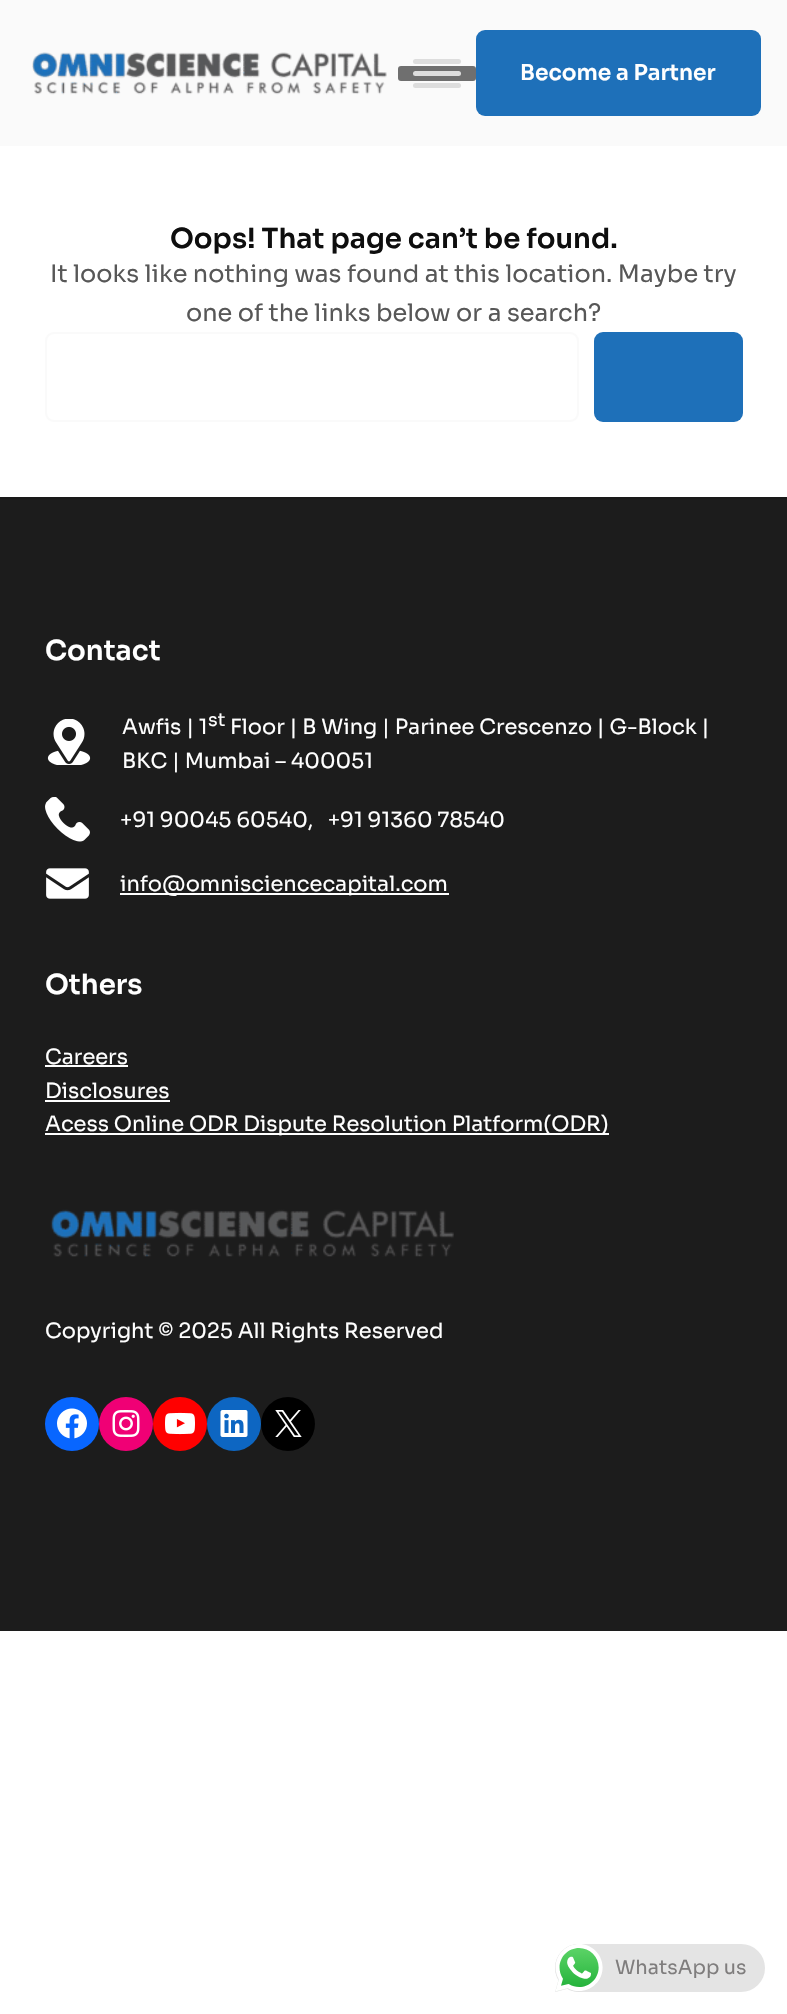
void draw(SkCanvas* canvas) {
	SkPaint paint;
	paint.setAntiAlias(true);
	canvas->clear(0xffffffff);
	paint.setColor(0xfffafafa);
	canvas->drawRect(SkRect::MakeXYWH(0, 0, 787, 146), paint);
	canvas->drawImageRect(SkImages::DeferredFromEncodedData(SkData::MakeFromFileName("img1.png")), SkRect::MakeXYWH(32, 52, 355, 43), SkSamplingOptions());
	paint.setColor(0xff6f6f6f);
	canvas->drawRoundRect(SkRect::MakeXYWH(398, 66, 78, 15), 3, 3, paint);
	paint.setColor(0xffdddddd);
	canvas->drawRoundRect(SkRect::MakeXYWH(413, 59, 48, 5), 2.5, 2.5, paint);
	canvas->drawRoundRect(SkRect::MakeXYWH(413, 71, 48, 5), 2.5, 2.5, paint);
	canvas->drawRoundRect(SkRect::MakeXYWH(413, 83, 48, 5), 2.5, 2.5, paint);
	paint.setColor(0xff1e70b9);
	canvas->drawRoundRect(SkRect::MakeXYWH(476, 30, 285, 86), 9, 9, paint);
	SkFont f1(fontMgr->matchFamilyStyle("Sora", SkFontStyle(600, SkFontStyle::kNormal_Width, SkFontStyle::kUpright_Slant)), 21.75);
	f1.setSubpixel(true);
	paint.setColor(0xffffffff);
	canvas->drawString("Become a Partner", 520, 80, f1, paint);
	SkFont f2(fontMgr->matchFamilyStyle("Sora", SkFontStyle(600, SkFontStyle::kNormal_Width, SkFontStyle::kUpright_Slant)), 27.6);
	f2.setSubpixel(true);
	paint.setColor(0xff0e0e0e);
	canvas->drawString("Oops! That page can’t be found.", 170, 248, f2, paint);
	SkFont f3(fontMgr->matchFamilyStyle("Sora", SkFontStyle::Normal()), 24);
	f3.setSubpixel(true);
	paint.setColor(0xff575757);
	canvas->drawString("It looks like nothing was found at this location. Maybe try", 50, 282, f3, paint);
	canvas->drawString("one of the links below or a search?", 186, 321, f3, paint);
	paint.setStroke(true);
	paint.setStrokeWidth(2);
	paint.setColor(0xfffafafa);
	canvas->drawRoundRect(SkRect::MakeXYWH(46, 333, 532, 88), 8, 8, paint);
	paint.setStroke(false);
	paint.setColor(0xff1e70b9);
	canvas->drawRoundRect(SkRect::MakeXYWH(594, 332, 149, 90), 9, 9, paint);
	paint.setColor(0xff1c1c1c);
	canvas->drawRect(SkRect::MakeXYWH(0, 499, 787, 1132), paint);
	paint.setColor(0xff191919);
	canvas->drawRect(SkRect::MakeXYWH(0, 497, 787, 2), paint);
	paint.setColor(0xffffffff);
	canvas->drawString("Contact", 45, 660, f2, paint);
	canvas->drawImageRect(SkImages::DeferredFromEncodedData(SkData::MakeFromFileName("img2.png")), SkRect::MakeXYWH(47, 719, 44, 46), SkSamplingOptions());
	SkFont f4(fontMgr->matchFamilyStyle("Sora", SkFontStyle::Normal()), 21);
	f4.setSubpixel(true);
	canvas->drawString("Awfis | 1", 122, 734, f4, paint);
	SkFont f5(fontMgr->matchFamilyStyle("Sora", SkFontStyle::Normal()), 18);
	f5.setSubpixel(true);
	canvas->drawString("st", 208, 726, f5, paint);
	canvas->drawString("Floor | B Wing | Parinee Crescenzo | G-Block |", 230, 734, f4, paint);
	canvas->drawString("BKC | Mumbai – 400051", 122, 768, f4, paint);
	canvas->drawImageRect(SkImages::DeferredFromEncodedData(SkData::MakeFromFileName("img3.png")), SkRect::MakeXYWH(45, 797, 45, 45), SkSamplingOptions());
	canvas->drawString("+91 90045 60540,   +91 91360 78540", 120, 827, f4, paint);
	canvas->drawImageRect(SkImages::DeferredFromEncodedData(SkData::MakeFromFileName("img4.png")), SkRect::MakeXYWH(46, 868, 43, 31), SkSamplingOptions());
	canvas->drawRect(SkRect::MakeXYWH(120, 893, 329, 2), paint);
	canvas->drawString("info@omnisciencecapital.com", 120, 891, f4, paint);
	canvas->drawString("Others", 45, 994, f2, paint);
	canvas->drawString("Careers", 45, 1064, f4, paint);
	canvas->drawRect(SkRect::MakeXYWH(45, 1065, 83, 2), paint);
	canvas->drawString("Disclosures", 45, 1098, f4, paint);
	canvas->drawRect(SkRect::MakeXYWH(45, 1100, 125, 2), paint);
	canvas->drawRect(SkRect::MakeXYWH(45, 1133, 564, 2), paint);
	canvas->drawString("Acess Online ODR Dispute Resolution Platform(ODR)", 45, 1131, f4, paint);
	canvas->drawImageRect(SkImages::DeferredFromEncodedData(SkData::MakeFromFileName("img5.png")), SkRect::MakeXYWH(50, 1209, 404, 48), SkSamplingOptions());
	canvas->drawString("Copyright © 2025 All Rights Reserved", 45, 1338, f4, paint);
	paint.setColor(0xff0866ff);
	canvas->drawCircle(72, 1424, 27, paint);
	canvas->drawImageRect(SkImages::DeferredFromEncodedData(SkData::MakeFromFileName("img6.png")), SkRect::MakeXYWH(57, 1408, 30, 31), SkSamplingOptions());
	paint.setColor(0xfff00075);
	canvas->drawCircle(126, 1424, 27, paint);
	canvas->drawImageRect(SkImages::DeferredFromEncodedData(SkData::MakeFromFileName("img7.png")), SkRect::MakeXYWH(112, 1410, 28, 27), SkSamplingOptions());
	paint.setColor(0xffff0000);
	canvas->drawCircle(180, 1424, 27, paint);
	canvas->drawImageRect(SkImages::DeferredFromEncodedData(SkData::MakeFromFileName("img8.png")), SkRect::MakeXYWH(165, 1412, 30, 23), SkSamplingOptions());
	paint.setColor(0xff0d66c2);
	canvas->drawCircle(234, 1424, 27, paint);
	canvas->drawImageRect(SkImages::DeferredFromEncodedData(SkData::MakeFromFileName("img9.png")), SkRect::MakeXYWH(220, 1410, 28, 27), SkSamplingOptions());
	paint.setColor(0xff000000);
	canvas->drawCircle(288, 1424, 27, paint);
	canvas->drawImageRect(SkImages::DeferredFromEncodedData(SkData::MakeFromFileName("img10.png")), SkRect::MakeXYWH(275, 1410, 27, 27), SkSamplingOptions());
	paint.setColor(0xffe4e4e4);
	canvas->drawRoundRect(SkRect::MakeXYWH(555, 1944, 210, 48), 24, 24, paint);
	canvas->drawImageRect(SkImages::DeferredFromEncodedData(SkData::MakeFromFileName("img11.png")), SkRect::MakeXYWH(555, 1944, 48, 48), SkSamplingOptions());
	SkFont f6(fontMgr->matchFamilyStyle("Sora", SkFontStyle::Normal()), 19.5);
	f6.setSubpixel(true);
	paint.setColor(0xff7f7d7d);
	canvas->drawString("WhatsApp us", 615, 1974, f6, paint);
}
